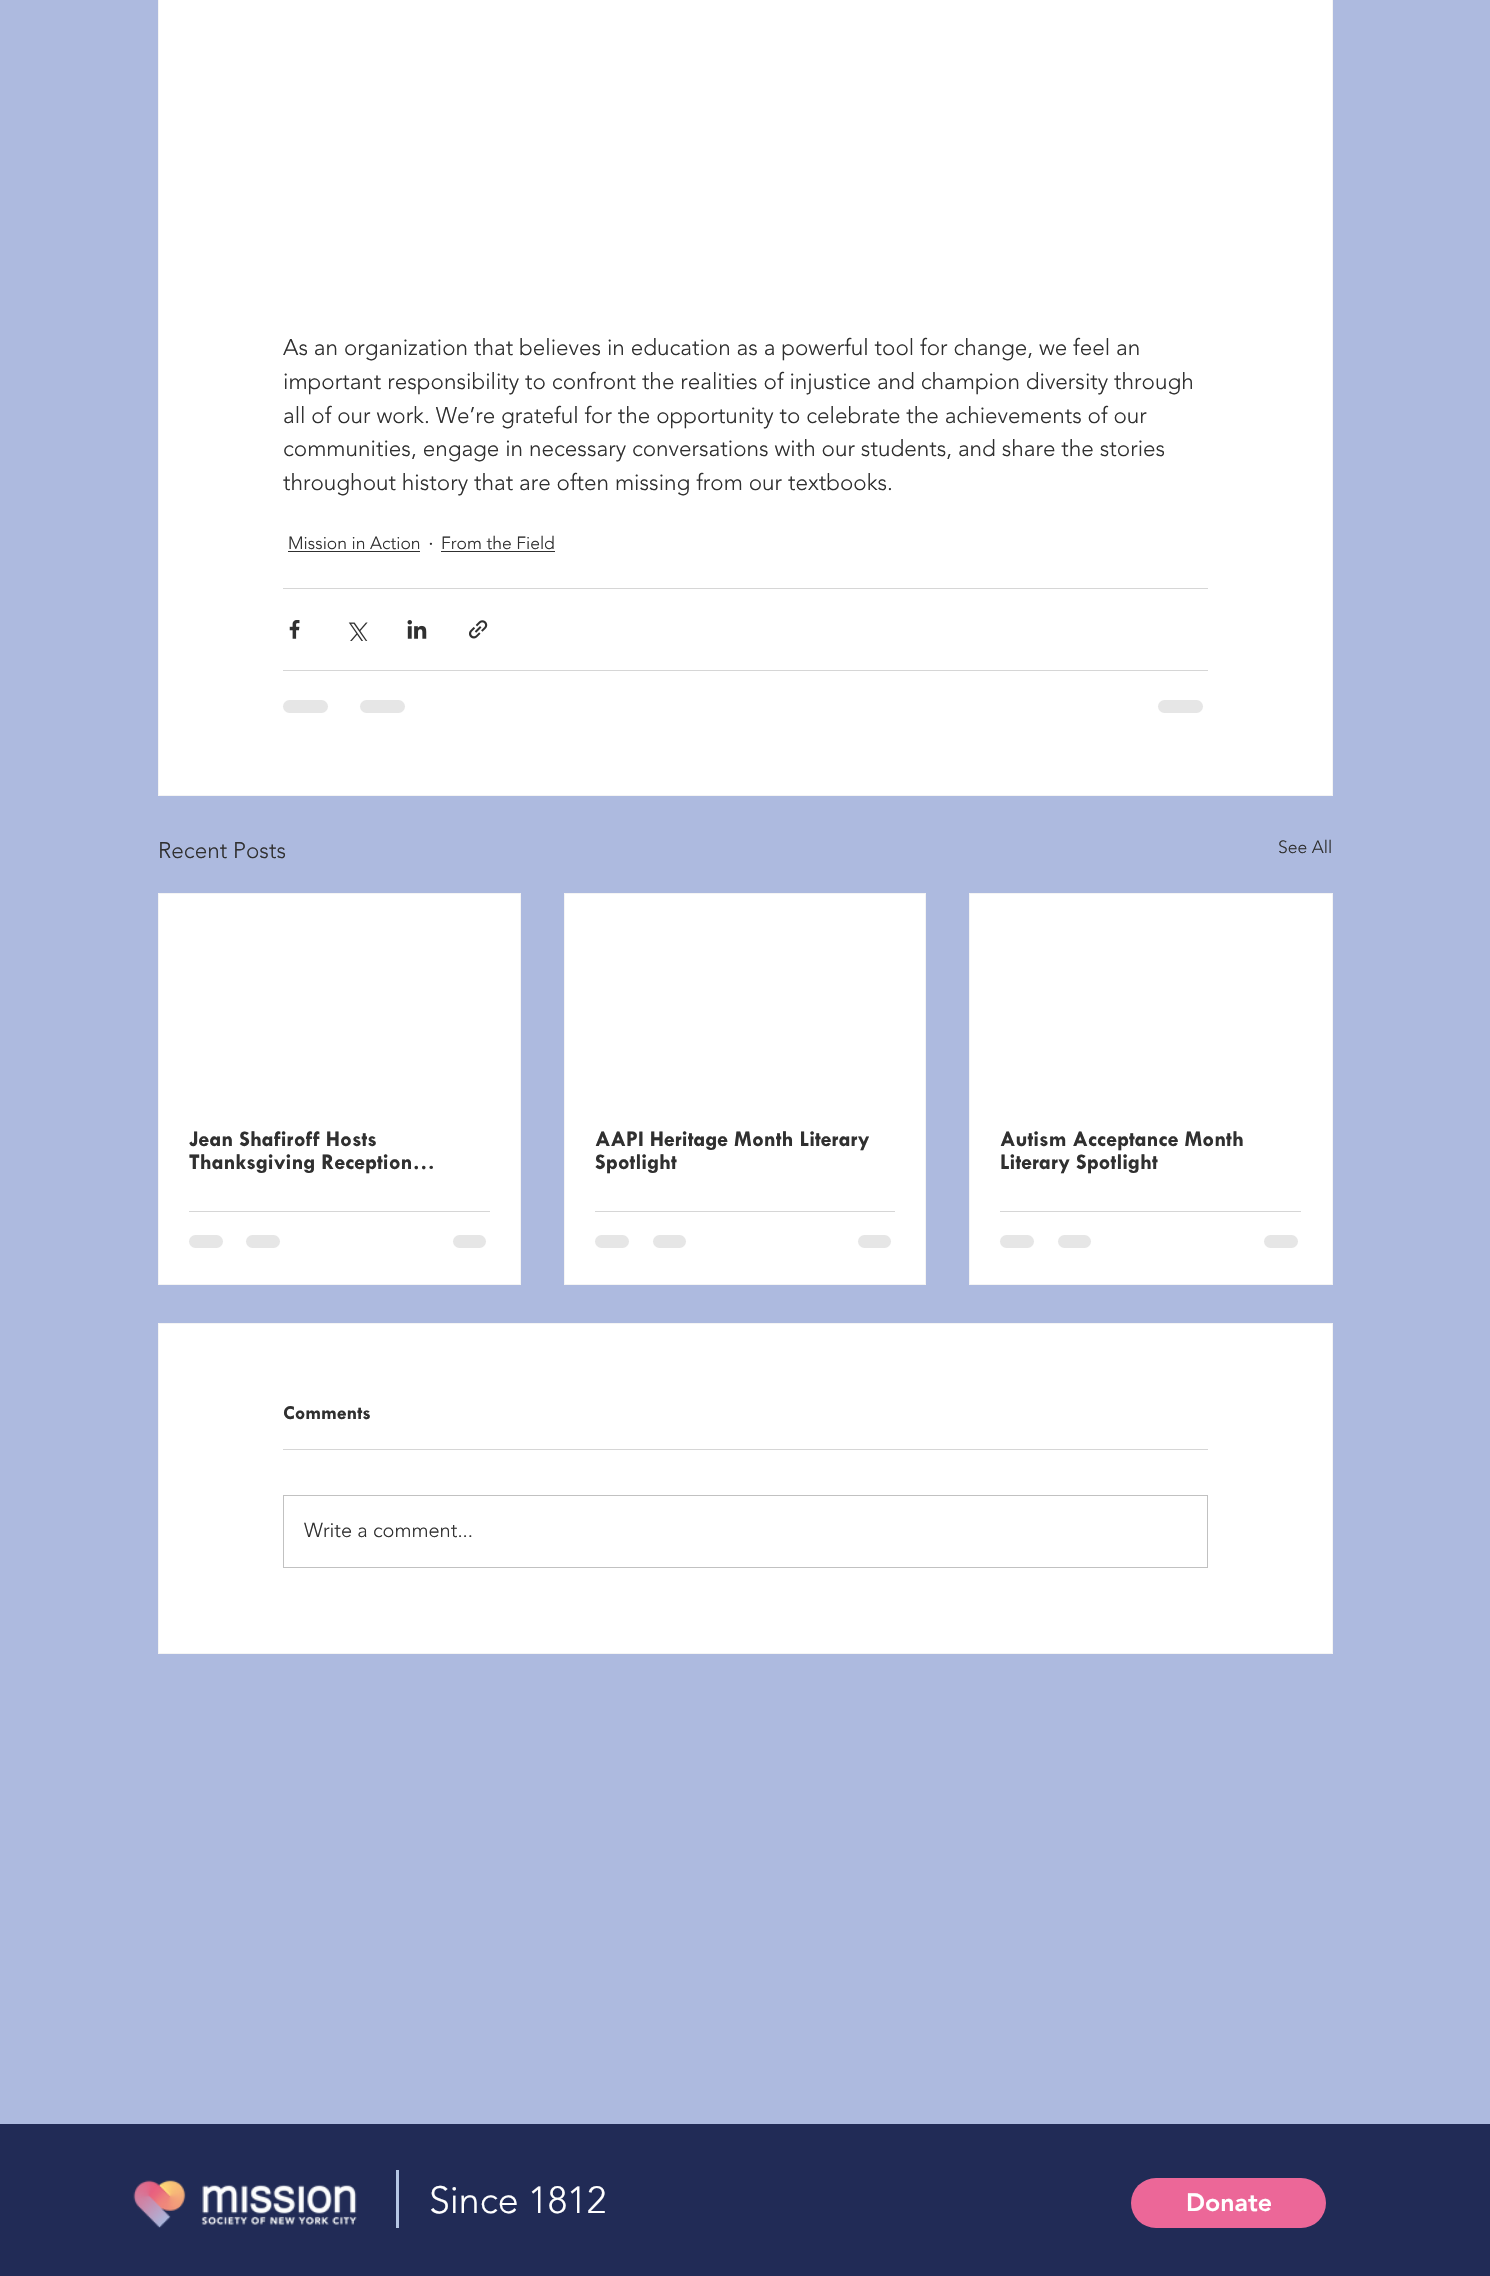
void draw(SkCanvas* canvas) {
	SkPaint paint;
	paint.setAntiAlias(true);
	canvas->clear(0xffadbadf);
	paint.setColor(0xffffffff);
	canvas->drawRect(SkRect::MakeXYWH(158.5, -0.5, 1174, 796), paint);
	paint.setStroke(true);
	paint.setStrokeWidth(1);
	paint.setColor(0xfff4f4f4);
	canvas->drawRect(SkRect::MakeXYWH(158.5, -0.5, 1174, 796), paint);
	SkFont f1(fontMgr->matchFamilyStyle("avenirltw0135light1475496", SkFontStyle(300, SkFontStyle::kNormal_Width, SkFontStyle::kUpright_Slant)), 22.5);
	f1.setSubpixel(true);
	paint.setStroke(false);
	paint.setColor(0xff303030);
	canvas->drawString("As an organization that believes in education as a powerful tool for change, we feel an", 283, 355, f1, paint);
	canvas->drawString("important responsibility to confront the realities of injustice and champion diversity through", 283, 389, f1, paint);
	canvas->drawString("all of our work. We’re grateful for the opportunity to celebrate the achievements of our", 283, 423, f1, paint);
	canvas->drawString("communities, engage in necessary conversations with our students, and share the stories", 283, 456, f1, paint);
	canvas->drawString("throughout history that are often missing from our textbooks.", 283, 490, f1, paint);
	SkFont f2(fontMgr->matchFamilyStyle("avenirltw0135light1475496", SkFontStyle(300, SkFontStyle::kNormal_Width, SkFontStyle::kUpright_Slant)), 17.5);
	f2.setSubpixel(true);
	canvas->drawString("Mission in Action", 288, 549, f2, paint);
	canvas->drawRect(SkRect::MakeXYWH(288, 551, 132, 1), paint);
	canvas->drawString("·", 428, 551, f1, paint);
	canvas->drawString("From the Field", 441, 549, f2, paint);
	canvas->drawRect(SkRect::MakeXYWH(441, 551, 114, 1), paint);
	paint.setColor(0xffd6d6d6);
	canvas->drawRect(SkRect::MakeXYWH(283, 588, 925, 1), paint);
	canvas->drawImageRect(SkImages::DeferredFromEncodedData(SkData::MakeFromFileName("img1.png")), SkRect::MakeXYWH(289, 620, 11, 19), SkSamplingOptions());
	canvas->drawImageRect(SkImages::DeferredFromEncodedData(SkData::MakeFromFileName("img2.png")), SkRect::MakeXYWH(348, 622, 20, 19), SkSamplingOptions());
	canvas->drawImageRect(SkImages::DeferredFromEncodedData(SkData::MakeFromFileName("img3.png")), SkRect::MakeXYWH(407, 620, 20, 19), SkSamplingOptions());
	canvas->drawImageRect(SkImages::DeferredFromEncodedData(SkData::MakeFromFileName("img4.png")), SkRect::MakeXYWH(469, 620, 19, 19), SkSamplingOptions());
	canvas->drawRect(SkRect::MakeXYWH(283, 670, 925, 1), paint);
	paint.setColor(0xffe6e6e6);
	canvas->drawRoundRect(SkRect::MakeXYWH(283, 700, 45, 13), 6.5, 6.5, paint);
	canvas->drawRoundRect(SkRect::MakeXYWH(360, 700, 45, 13), 6.5, 6.5, paint);
	canvas->drawRoundRect(SkRect::MakeXYWH(1158, 700, 45, 13), 6.5, 6.5, paint);
	paint.setColor(0xff303030);
	canvas->drawString("Recent Posts", 158, 858, f1, paint);
	canvas->drawString("See All", 1278, 853, f2, paint);
	paint.setColor(0xffffffff);
	canvas->drawRect(SkRect::MakeXYWH(158.5, 893.5, 362, 391), paint);
	paint.setStroke(true);
	paint.setColor(0xfff4f4f4);
	canvas->drawRect(SkRect::MakeXYWH(158.5, 893.5, 362, 391), paint);
	SkFont f3(fontMgr->matchFamilyStyle("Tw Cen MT", SkFontStyle::Bold()), 22.5);
	f3.setSubpixel(true);
	paint.setStroke(false);
	paint.setColor(0xff303030);
	canvas->drawString("Jean Shafiroff Hosts", 189, 1146, f3, paint);
	canvas->drawString("Thanksgiving Reception…", 189, 1169, f3, paint);
	paint.setColor(0xffd6d6d6);
	canvas->drawRect(SkRect::MakeXYWH(189, 1211, 301, 1), paint);
	paint.setColor(0xffe6e6e6);
	canvas->drawRoundRect(SkRect::MakeXYWH(189, 1235, 34, 13), 6.5, 6.5, paint);
	canvas->drawRoundRect(SkRect::MakeXYWH(246, 1235, 34, 13), 6.5, 6.5, paint);
	canvas->drawRoundRect(SkRect::MakeXYWH(453, 1235, 33, 13), 6.5, 6.5, paint);
	paint.setColor(0xffffffff);
	canvas->drawRect(SkRect::MakeXYWH(564.5, 893.5, 361, 391), paint);
	paint.setStroke(true);
	paint.setColor(0xfff4f4f4);
	canvas->drawRect(SkRect::MakeXYWH(564.5, 893.5, 361, 391), paint);
	paint.setStroke(false);
	paint.setColor(0xff303030);
	canvas->drawString("AAPI Heritage Month Literary", 595, 1146, f3, paint);
	canvas->drawString("Spotlight", 595, 1169, f3, paint);
	paint.setColor(0xffd6d6d6);
	canvas->drawRect(SkRect::MakeXYWH(595, 1211, 300, 1), paint);
	paint.setColor(0xffe6e6e6);
	canvas->drawRoundRect(SkRect::MakeXYWH(595, 1235, 34, 13), 6.5, 6.5, paint);
	canvas->drawRoundRect(SkRect::MakeXYWH(653, 1235, 33, 13), 6.5, 6.5, paint);
	canvas->drawRoundRect(SkRect::MakeXYWH(858, 1235, 33, 13), 6.5, 6.5, paint);
	paint.setColor(0xffffffff);
	canvas->drawRect(SkRect::MakeXYWH(969.5, 893.5, 363, 391), paint);
	paint.setStroke(true);
	paint.setColor(0xfff4f4f4);
	canvas->drawRect(SkRect::MakeXYWH(969.5, 893.5, 363, 391), paint);
	paint.setStroke(false);
	paint.setColor(0xff303030);
	canvas->drawString("Autism Acceptance Month", 1000, 1146, f3, paint);
	canvas->drawString("Literary Spotlight", 1000, 1169, f3, paint);
	paint.setColor(0xffd6d6d6);
	canvas->drawRect(SkRect::MakeXYWH(1000, 1211, 301, 1), paint);
	paint.setColor(0xffe6e6e6);
	canvas->drawRoundRect(SkRect::MakeXYWH(1000, 1235, 34, 13), 6.5, 6.5, paint);
	canvas->drawRoundRect(SkRect::MakeXYWH(1058, 1235, 33, 13), 6.5, 6.5, paint);
	canvas->drawRoundRect(SkRect::MakeXYWH(1264, 1235, 34, 13), 6.5, 6.5, paint);
	paint.setColor(0xffffffff);
	canvas->drawRect(SkRect::MakeXYWH(158.5, 1323.5, 1174, 330), paint);
	paint.setStroke(true);
	paint.setColor(0xfff4f4f4);
	canvas->drawRect(SkRect::MakeXYWH(158.5, 1323.5, 1174, 330), paint);
	SkFont f4(fontMgr->matchFamilyStyle("Tw Cen MT", SkFontStyle::Bold()), 20);
	f4.setSubpixel(true);
	paint.setStroke(false);
	paint.setColor(0xff303030);
	canvas->drawString("Comments", 283, 1419, f4, paint);
	paint.setColor(0xffd6d6d6);
	canvas->drawRect(SkRect::MakeXYWH(283, 1449, 925, 1), paint);
	paint.setStroke(true);
	paint.setColor(0xffc1c1c1);
	canvas->drawRect(SkRect::MakeXYWH(283.5, 1495.5, 924, 72), paint);
	SkFont f5(fontMgr->matchFamilyStyle("avenirltw0135light1475496", SkFontStyle(300, SkFontStyle::kNormal_Width, SkFontStyle::kUpright_Slant)), 20);
	f5.setSubpixel(true);
	paint.setStroke(false);
	paint.setColor(0xff303030);
	canvas->drawString("Write a comment...", 304, 1537, f5, paint);
	paint.setColor(0xff212b56);
	canvas->drawRect(SkRect::MakeXYWH(0, 2124, 1490, 152), paint);
	canvas->drawImageRect(SkImages::DeferredFromEncodedData(SkData::MakeFromFileName("img5.png")), SkRect::MakeXYWH(133, 2180, 224, 48), SkSamplingOptions());
	paint.setColor(0xffb6c7e5);
	canvas->drawRect(SkRect::MakeXYWH(396, 2170, 3, 58), paint);
	SkFont f6(fontMgr->matchFamilyStyle("avenirltw0135light1475496", SkFontStyle(300, SkFontStyle::kNormal_Width, SkFontStyle::kUpright_Slant)), 37.5);
	f6.setSubpixel(true);
	paint.setColor(0xffffffff);
	canvas->drawString("Since 1812", 429, 2213, f6, paint);
	paint.setColor(0xffec6798);
	canvas->drawRoundRect(SkRect::MakeXYWH(1131, 2178, 195, 50), 25, 25, paint);
	SkFont f7(fontMgr->matchFamilyStyle("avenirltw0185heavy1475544", SkFontStyle(900, SkFontStyle::kNormal_Width, SkFontStyle::kUpright_Slant)), 25);
	f7.setSubpixel(true);
	paint.setColor(0xffffffff);
	canvas->drawString("Donate", 1186, 2211, f7, paint);
}
